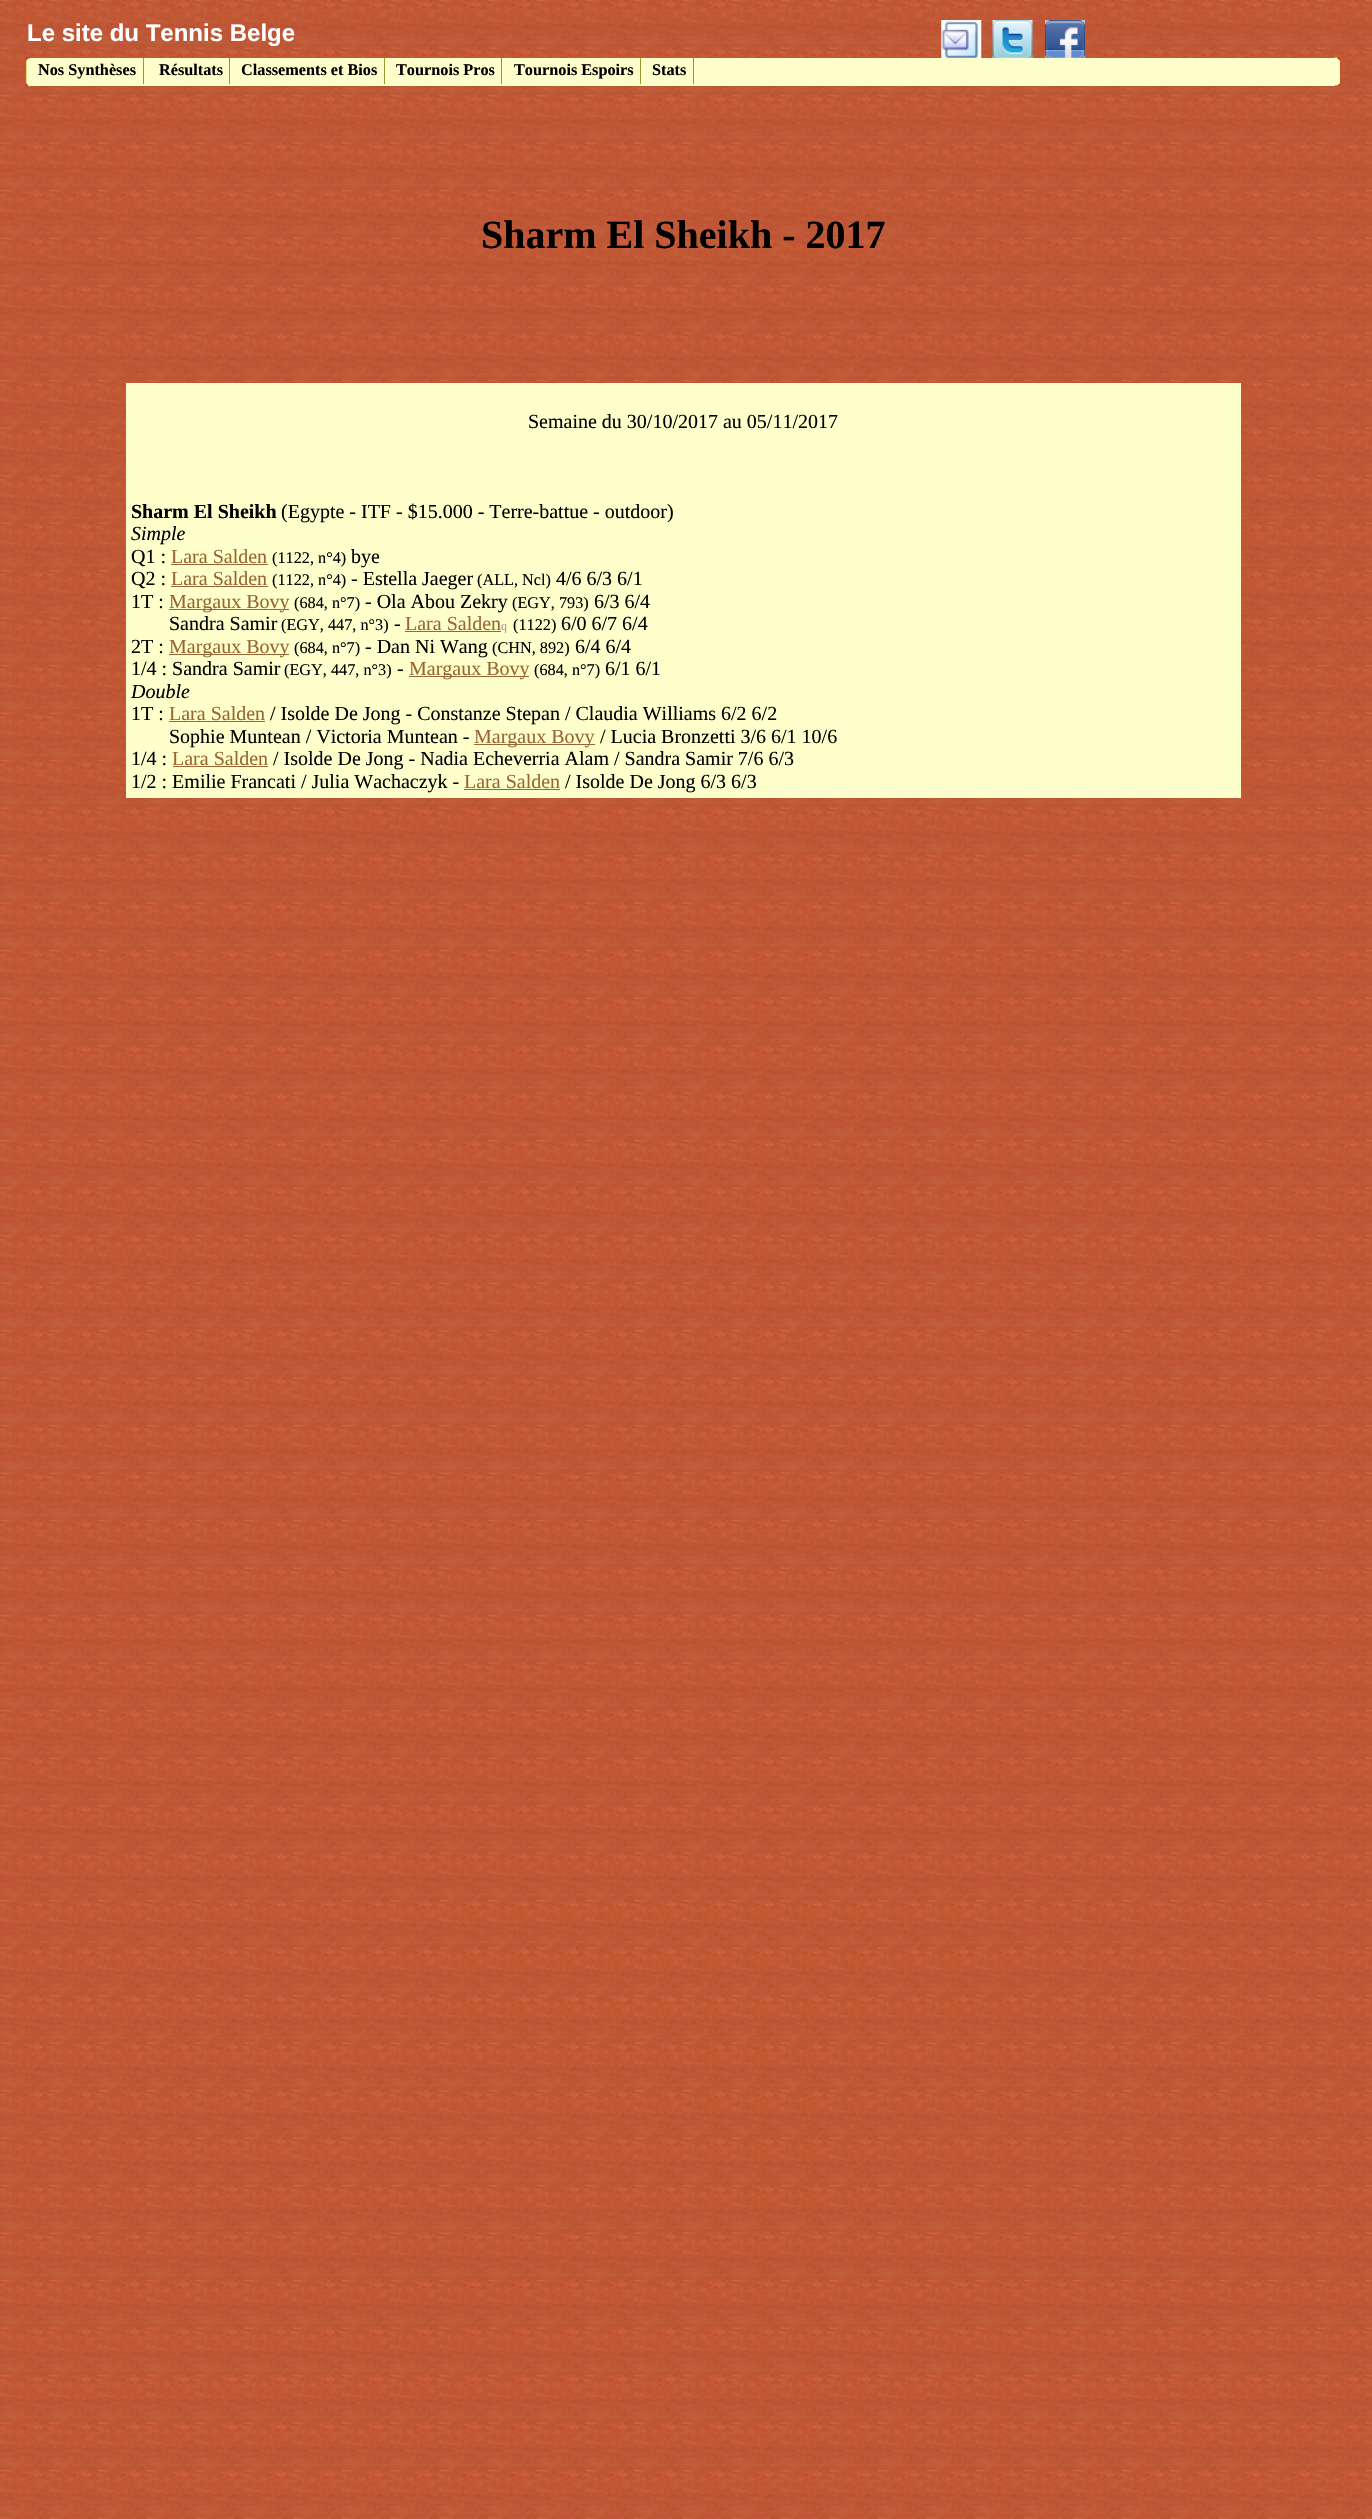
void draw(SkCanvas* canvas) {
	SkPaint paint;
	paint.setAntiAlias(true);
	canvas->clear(0xffffffff);
	canvas->drawImageRect(SkImages::DeferredFromEncodedData(SkData::MakeFromFileName("img1.png")), SkRect::MakeXYWH(0, 0, 1372, 2519), SkSamplingOptions());
	SkFont f1(fontMgr->matchFamilyStyle("Liberation Sans", SkFontStyle::Bold()), 24);
	f1.setSubpixel(true);
	paint.setColor(0xffffffff);
	canvas->drawString("Le site du Tennis Belge", 27, 41, f1, paint);
	canvas->drawImageRect(SkImages::DeferredFromEncodedData(SkData::MakeFromFileName("img2.png")), SkRect::MakeXYWH(941, 20, 41, 38), SkSamplingOptions());
	canvas->drawImageRect(SkImages::DeferredFromEncodedData(SkData::MakeFromFileName("img3.png")), SkRect::MakeXYWH(992, 20, 41, 38), SkSamplingOptions());
	canvas->drawImageRect(SkImages::DeferredFromEncodedData(SkData::MakeFromFileName("img4.png")), SkRect::MakeXYWH(1045, 20, 40, 38), SkSamplingOptions());
	paint.setColor(0xffffffcc);
	canvas->drawRect(SkRect::MakeXYWH(30, 58, 1305, 28), paint);
	canvas->drawImageRect(SkImages::DeferredFromEncodedData(SkData::MakeFromFileName("img5.png")), SkRect::MakeXYWH(26, 57, 4, 30), SkSamplingOptions());
	SkFont f2(fontMgr->matchFamilyStyle("Liberation Serif", SkFontStyle::Bold()), 16.25);
	f2.setSubpixel(true);
	paint.setColor(0xff000000);
	canvas->drawString("Nos Synthèses", 38, 75, f2, paint);
	paint.setColor(0xff999933);
	canvas->drawRect(SkRect::MakeXYWH(143, 58, 1, 26), paint);
	paint.setColor(0xff000000);
	canvas->drawString("Résultats", 159, 75, f2, paint);
	paint.setColor(0xff999933);
	canvas->drawRect(SkRect::MakeXYWH(229, 58, 1, 26), paint);
	paint.setColor(0xff000000);
	canvas->drawString("Classements et Bios", 241, 75, f2, paint);
	paint.setColor(0xff999933);
	canvas->drawRect(SkRect::MakeXYWH(384, 58, 1, 26), paint);
	paint.setColor(0xff000000);
	canvas->drawString("Tournois Pros", 396, 75, f2, paint);
	paint.setColor(0xff999933);
	canvas->drawRect(SkRect::MakeXYWH(501, 58, 1, 26), paint);
	paint.setColor(0xff000000);
	canvas->drawString("Tournois Espoirs", 514, 75, f2, paint);
	paint.setColor(0xff999933);
	canvas->drawRect(SkRect::MakeXYWH(640, 58, 1, 26), paint);
	paint.setColor(0xff000000);
	canvas->drawString("Stats", 652, 75, f2, paint);
	paint.setColor(0xff999933);
	canvas->drawRect(SkRect::MakeXYWH(693, 58, 1, 26), paint);
	canvas->drawImageRect(SkImages::DeferredFromEncodedData(SkData::MakeFromFileName("img6.png")), SkRect::MakeXYWH(1335, 57, 5, 30), SkSamplingOptions());
	SkFont f3(fontMgr->matchFamilyStyle("Liberation Serif", SkFontStyle::Bold()), 40);
	f3.setSubpixel(true);
	paint.setColor(0xff000000);
	canvas->drawString("Sharm El Sheikh - 2017", 481, 248, f3, paint);
	paint.setColor(0xffffffcc);
	canvas->drawRect(SkRect::MakeXYWH(126, 383, 1115, 415), paint);
	SkFont f4(fontMgr->matchFamilyStyle("Liberation Serif", SkFontStyle::Normal()), 20);
	f4.setSubpixel(true);
	paint.setColor(0xff000000);
	canvas->drawString("Semaine du 30/10/2017 au 05/11/2017", 528, 428, f4, paint);
	SkFont f5(fontMgr->matchFamilyStyle("Liberation Serif", SkFontStyle::Bold()), 20);
	f5.setSubpixel(true);
	canvas->drawString("Sharm El Sheikh", 131, 518, f5, paint);
	canvas->drawString("(Egypte - ITF - $15.000 - Terre-battue - outdoor)", 281, 518, f4, paint);
	SkFont f6(fontMgr->matchFamilyStyle("Liberation Serif", SkFontStyle::Italic()), 20);
	f6.setSubpixel(true);
	canvas->drawString("Simple", 131, 540, f6, paint);
	canvas->drawString("Q1 :", 131, 563, f4, paint);
	paint.setColor(0xff996633);
	canvas->drawString("Lara Salden", 171, 563, f4, paint);
	canvas->drawRect(SkRect::MakeXYWH(171, 564, 97, 1), paint);
	SkFont f7(fontMgr->matchFamilyStyle("Liberation Serif", SkFontStyle::Normal()), 16.25);
	f7.setSubpixel(true);
	paint.setColor(0xff000000);
	canvas->drawString("(1122, n°4)", 272, 563, f7, paint);
	canvas->drawString("bye", 351, 563, f4, paint);
	canvas->drawString("Q2 :", 131, 585, f4, paint);
	paint.setColor(0xff996633);
	canvas->drawString("Lara Salden", 171, 585, f4, paint);
	canvas->drawRect(SkRect::MakeXYWH(171, 586, 97, 1), paint);
	paint.setColor(0xff000000);
	canvas->drawString("(1122, n°4)", 272, 585, f7, paint);
	canvas->drawString("- Estella Jaeger", 351, 585, f4, paint);
	canvas->drawString("(ALL, Ncl)", 477, 585, f7, paint);
	canvas->drawString("4/6 6/3 6/1", 556, 585, f4, paint);
	canvas->drawString("1T :", 131, 608, f4, paint);
	paint.setColor(0xff996633);
	canvas->drawRect(SkRect::MakeXYWH(169, 609, 120, 1), paint);
	canvas->drawString("Margaux Bovy", 169, 608, f4, paint);
	paint.setColor(0xff000000);
	canvas->drawString("(684, n°7)", 294, 608, f7, paint);
	canvas->drawString("- Ola Abou Zekry", 365, 608, f4, paint);
	canvas->drawString("(EGY, 793)", 512, 608, f7, paint);
	canvas->drawString("6/3 6/4", 594, 608, f4, paint);
	canvas->drawString("Sandra Samir", 169, 630, f4, paint);
	canvas->drawString("(EGY, 447, n°3)", 281, 630, f7, paint);
	canvas->drawString("-", 394, 630, f4, paint);
	paint.setColor(0xff996633);
	canvas->drawString("Lara Salden", 405, 630, f4, paint);
	canvas->drawRect(SkRect::MakeXYWH(405, 631, 96, 1), paint);
	SkFont f8(fontMgr->matchFamilyStyle("Liberation Serif", SkFontStyle::Normal()), 12);
	f8.setSubpixel(true);
	paint.setColor(0xff999999);
	canvas->drawString("q", 501, 630, f8, paint);
	paint.setColor(0xff000000);
	canvas->drawString("(1122)", 513, 630, f7, paint);
	canvas->drawString("6/0 6/7 6/4", 561, 630, f4, paint);
	canvas->drawString("2T :", 131, 653, f4, paint);
	paint.setColor(0xff996633);
	canvas->drawRect(SkRect::MakeXYWH(169, 654, 120, 1), paint);
	canvas->drawString("Margaux Bovy", 169, 653, f4, paint);
	paint.setColor(0xff000000);
	canvas->drawString("(684, n°7)", 294, 653, f7, paint);
	canvas->drawString("- Dan Ni Wang", 365, 653, f4, paint);
	canvas->drawString("(CHN, 892)", 492, 653, f7, paint);
	canvas->drawString("6/4 6/4", 575, 653, f4, paint);
	canvas->drawString("1/4 : Sandra Samir", 131, 675, f4, paint);
	canvas->drawString("(EGY, 447, n°3)", 284, 675, f7, paint);
	canvas->drawString("-", 397, 675, f4, paint);
	paint.setColor(0xff996633);
	canvas->drawRect(SkRect::MakeXYWH(409, 676, 120, 1), paint);
	canvas->drawString("Margaux Bovy", 409, 675, f4, paint);
	paint.setColor(0xff000000);
	canvas->drawString("(684, n°7)", 534, 675, f7, paint);
	canvas->drawString("6/1 6/1", 605, 675, f4, paint);
	canvas->drawString("Double", 131, 698, f6, paint);
	canvas->drawString("1T :", 131, 720, f4, paint);
	paint.setColor(0xff996633);
	canvas->drawString("Lara Salden", 169, 720, f4, paint);
	canvas->drawRect(SkRect::MakeXYWH(169, 721, 96, 1), paint);
	paint.setColor(0xff000000);
	canvas->drawString("/ Isolde De Jong - Constanze Stepan / Claudia Williams 6/2 6/2", 270, 720, f4, paint);
	canvas->drawString("Sophie Muntean / Victoria Muntean -", 169, 743, f4, paint);
	paint.setColor(0xff996633);
	canvas->drawRect(SkRect::MakeXYWH(474, 744, 121, 1), paint);
	canvas->drawString("Margaux Bovy", 474, 743, f4, paint);
	paint.setColor(0xff000000);
	canvas->drawString("/ Lucia Bronzetti 3/6 6/1 10/6", 600, 743, f4, paint);
	canvas->drawString("1/4 :", 131, 765, f4, paint);
	paint.setColor(0xff996633);
	canvas->drawString("Lara Salden", 172, 765, f4, paint);
	canvas->drawRect(SkRect::MakeXYWH(173, 766, 95, 1), paint);
	paint.setColor(0xff000000);
	canvas->drawString("/ Isolde De Jong - Nadia Echeverria Alam / Sandra Samir 7/6 6/3", 273, 765, f4, paint);
	canvas->drawString("1/2 : Emilie Francati / Julia Wachaczyk -", 131, 788, f4, paint);
	paint.setColor(0xff996633);
	canvas->drawString("Lara Salden", 464, 788, f4, paint);
	canvas->drawRect(SkRect::MakeXYWH(464, 789, 96, 1), paint);
	paint.setColor(0xff000000);
	canvas->drawString("/ Isolde De Jong 6/3 6/3", 565, 788, f4, paint);
}
